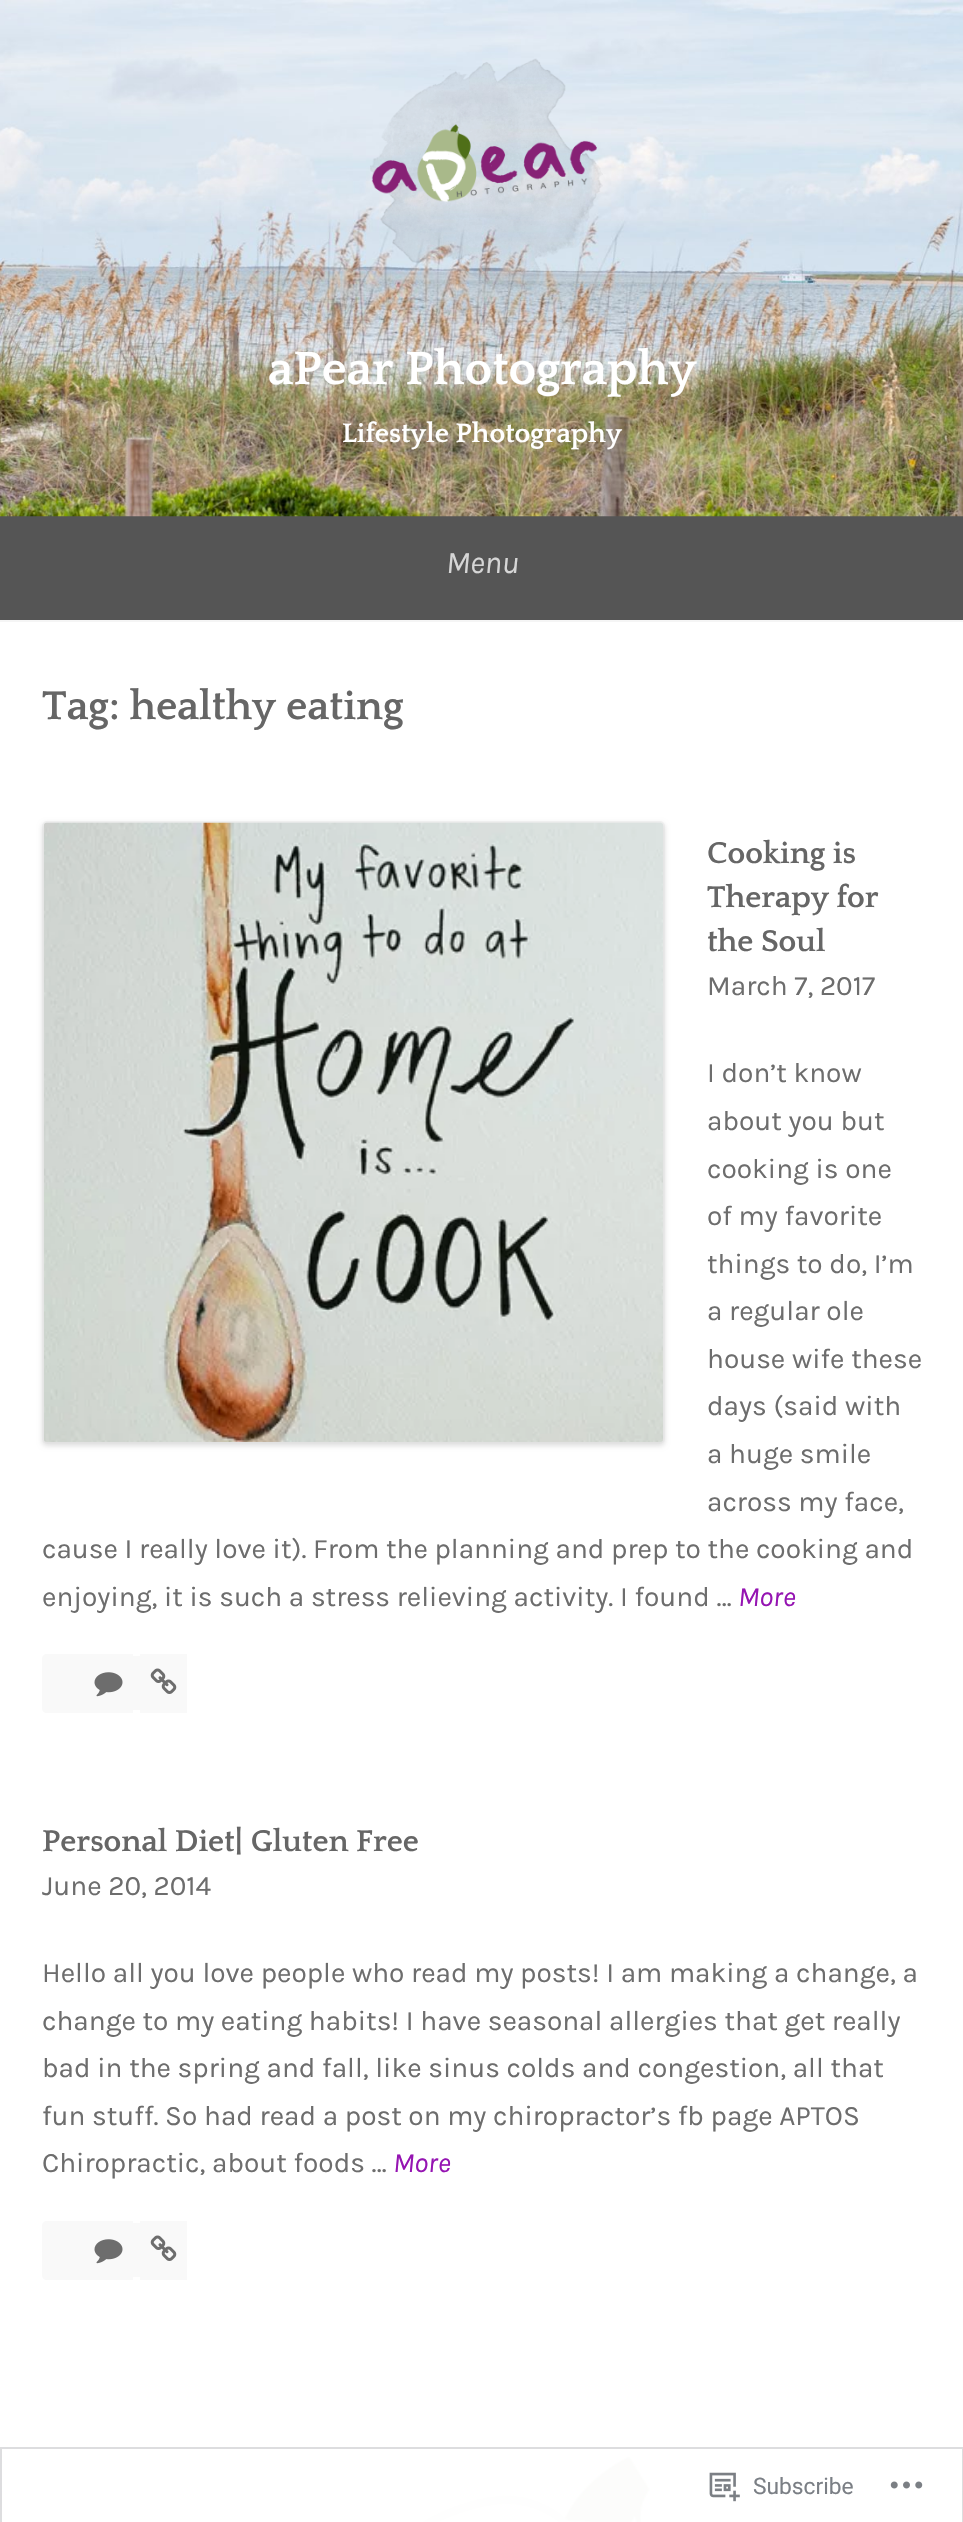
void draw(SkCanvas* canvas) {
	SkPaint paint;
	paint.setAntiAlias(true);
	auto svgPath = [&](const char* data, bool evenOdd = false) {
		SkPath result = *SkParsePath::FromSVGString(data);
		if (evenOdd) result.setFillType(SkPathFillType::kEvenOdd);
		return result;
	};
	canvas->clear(0xffffffff);
	paint.setColor(0xff555555);
	canvas->drawRect(SkRect::MakeXYWH(0, 516, 963, 104), paint);
	canvas->drawImageRect(SkImages::DeferredFromEncodedData(SkData::MakeFromFileName("img1.png")), SkRect::MakeXYWH(0, 0, 963, 517), SkSamplingOptions());
	canvas->drawImageRect(SkImages::DeferredFromEncodedData(SkData::MakeFromFileName("img2.png")), SkRect::MakeXYWH(370, 58, 233, 233), SkSamplingOptions());
	SkFont f1(fontMgr->matchFamilyStyle("Quattrocento", SkFontStyle::Bold()), 49);
	f1.setSubpixel(true);
	paint.setColor(0xffffffff);
	canvas->drawString("aPear Photography", 268, 384, f1, paint);
	SkFont f2(fontMgr->matchFamilyStyle("Quattrocento", SkFontStyle::Bold()), 28);
	f2.setSubpixel(true);
	canvas->drawString("Lifestyle Photography", 342, 442, f2, paint);
	paint.setColor(0xfff5f5f5);
	canvas->drawRect(SkRect::MakeXYWH(0, 620, 963, 2), paint);
	SkFont f3(fontMgr->matchFamilyStyle("Karla", SkFontStyle::Italic()), 31.5);
	f3.setSubpixel(true);
	paint.setColor(0xffd6d6d6);
	canvas->drawString("Menu", 446, 573, f3, paint);
	SkFont f4(fontMgr->matchFamilyStyle("Quattrocento", SkFontStyle::Bold()), 42);
	f4.setSubpixel(true);
	paint.setColor(0xff666666);
	canvas->drawString("Tag: healthy eating", 42, 719, f4, paint);
	paint.setColor(0x1f000000);
	paint.setMaskFilter(SkMaskFilter::MakeBlur(kNormal_SkBlurStyle, 2.5));
	canvas->drawRoundRect(SkRect::MakeXYWH(42, 823, 623, 623), 5, 5, paint);
	paint.setMaskFilter(nullptr);
	paint.setStroke(true);
	paint.setStrokeWidth(2);
	paint.setColor(0x4ddddddd);
	canvas->drawRoundRect(SkRect::MakeXYWH(43, 822, 621, 621), 4, 4, paint);
	canvas->drawImageRect(SkImages::DeferredFromEncodedData(SkData::MakeFromFileName("img3.png")), SkRect::MakeXYWH(44, 822, 619, 620), SkSamplingOptions());
	SkFont f5(fontMgr->matchFamilyStyle("Quattrocento", SkFontStyle::Bold()), 31.5);
	f5.setSubpixel(true);
	paint.setStroke(false);
	paint.setColor(0xff666666);
	canvas->drawString("Cooking is", 707, 863, f5, paint);
	canvas->drawString("Therapy for", 707, 907, f5, paint);
	canvas->drawString("the Soul", 707, 951, f5, paint);
	SkFont f6(fontMgr->matchFamilyStyle("Karla", SkFontStyle::Normal()), 28);
	f6.setSubpixel(true);
	paint.setColor(0xff6d6d6d);
	canvas->drawString("March 7, 2017", 707, 995, f6, paint);
	canvas->drawString("I don’t know", 707, 1082, f6, paint);
	canvas->drawString("about you but", 707, 1130, f6, paint);
	canvas->drawString("cooking is one", 707, 1178, f6, paint);
	canvas->drawString("of my favorite", 707, 1225, f6, paint);
	canvas->drawString("things to do, I’m", 707, 1273, f6, paint);
	canvas->drawString("a regular ole", 707, 1320, f6, paint);
	canvas->drawString("house wife these", 707, 1368, f6, paint);
	canvas->drawString("days (said with", 707, 1415, f6, paint);
	canvas->drawString("a huge smile", 707, 1463, f6, paint);
	canvas->drawString("across my face,", 707, 1511, f6, paint);
	canvas->drawString("cause I really love it). From the planning and prep to the cooking and", 42, 1558, f6, paint);
	canvas->drawString("enjoying, it is such a stress relieving activity. I found …", 42, 1606, f6, paint);
	SkFont f7(fontMgr->matchFamilyStyle("Karla", SkFontStyle::Italic()), 28);
	f7.setSubpixel(true);
	paint.setColor(0xff9514b2);
	canvas->drawString("More", 738, 1606, f7, paint);
	paint.setColor(0xfff9f9f9);
	canvas->drawPath(svgPath("M47 1654H133V1713H47C44 1713 42 1711 42 1708V1659C42 1656 44 1654 47 1654Z"), paint);
	canvas->drawRect(SkRect::MakeXYWH(133, 1656, 7, 54), paint);
	canvas->drawRect(SkRect::MakeXYWH(140, 1654, 47, 59), paint);
	canvas->drawImageRect(SkImages::DeferredFromEncodedData(SkData::MakeFromFileName("img4.png")), SkRect::MakeXYWH(94, 1672, 29, 25), SkSamplingOptions());
	canvas->drawImageRect(SkImages::DeferredFromEncodedData(SkData::MakeFromFileName("img5.png")), SkRect::MakeXYWH(150, 1668, 27, 26), SkSamplingOptions());
	paint.setColor(0xff666666);
	canvas->drawString("Personal Diet| Gluten Free", 42, 1851, f5, paint);
	paint.setColor(0xff6d6d6d);
	canvas->drawString("June 20, 2014", 42, 1895, f6, paint);
	canvas->drawString("Hello all you love people who read my posts! I am making a change, a", 42, 1982, f6, paint);
	canvas->drawString("change to my eating habits! I have seasonal allergies that get really", 42, 2030, f6, paint);
	canvas->drawString("bad in the spring and fall, like sinus colds and congestion, all that", 42, 2077, f6, paint);
	canvas->drawString("fun stuff. So had read a post on my chiropractor’s fb page APTOS", 42, 2125, f6, paint);
	canvas->drawString("Chiropractic, about foods …", 42, 2172, f6, paint);
	paint.setColor(0xff9514b2);
	canvas->drawString("More", 393, 2172, f7, paint);
	paint.setColor(0xfff9f9f9);
	canvas->drawPath(svgPath("M47 2221H133V2280H47C44 2280 42 2278 42 2275V2226C42 2223 44 2221 47 2221Z"), paint);
	canvas->drawRect(SkRect::MakeXYWH(133, 2223, 7, 54), paint);
	canvas->drawRect(SkRect::MakeXYWH(140, 2221, 47, 59), paint);
	canvas->drawImageRect(SkImages::DeferredFromEncodedData(SkData::MakeFromFileName("img4.png")), SkRect::MakeXYWH(94, 2239, 29, 25), SkSamplingOptions());
	canvas->drawImageRect(SkImages::DeferredFromEncodedData(SkData::MakeFromFileName("img5.png")), SkRect::MakeXYWH(150, 2235, 27, 26), SkSamplingOptions());
	canvas->drawImageRect(SkImages::DeferredFromEncodedData(SkData::MakeFromFileName("img6.png")), SkRect::MakeXYWH(420, 2456, 230, 66), SkSamplingOptions());
	paint.setStroke(true);
	paint.setColor(0xffdddddf);
	canvas->drawRect(SkRect::MakeXYWH(1, 2448, 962, 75), paint);
	canvas->drawImageRect(SkImages::DeferredFromEncodedData(SkData::MakeFromFileName("img7.png")), SkRect::MakeXYWH(709, 2472, 31, 30), SkSamplingOptions());
	SkFont f8(fontMgr->matchFamilyStyle("Roboto", SkFontStyle::Normal()), 22.75);
	f8.setSubpixel(true);
	paint.setStroke(false);
	paint.setColor(0xff7b7f85);
	canvas->drawString("Subscribe", 753, 2494, f8, paint);
	canvas->drawImageRect(SkImages::DeferredFromEncodedData(SkData::MakeFromFileName("img8.png")), SkRect::MakeXYWH(890, 2481, 33, 8), SkSamplingOptions());
}
